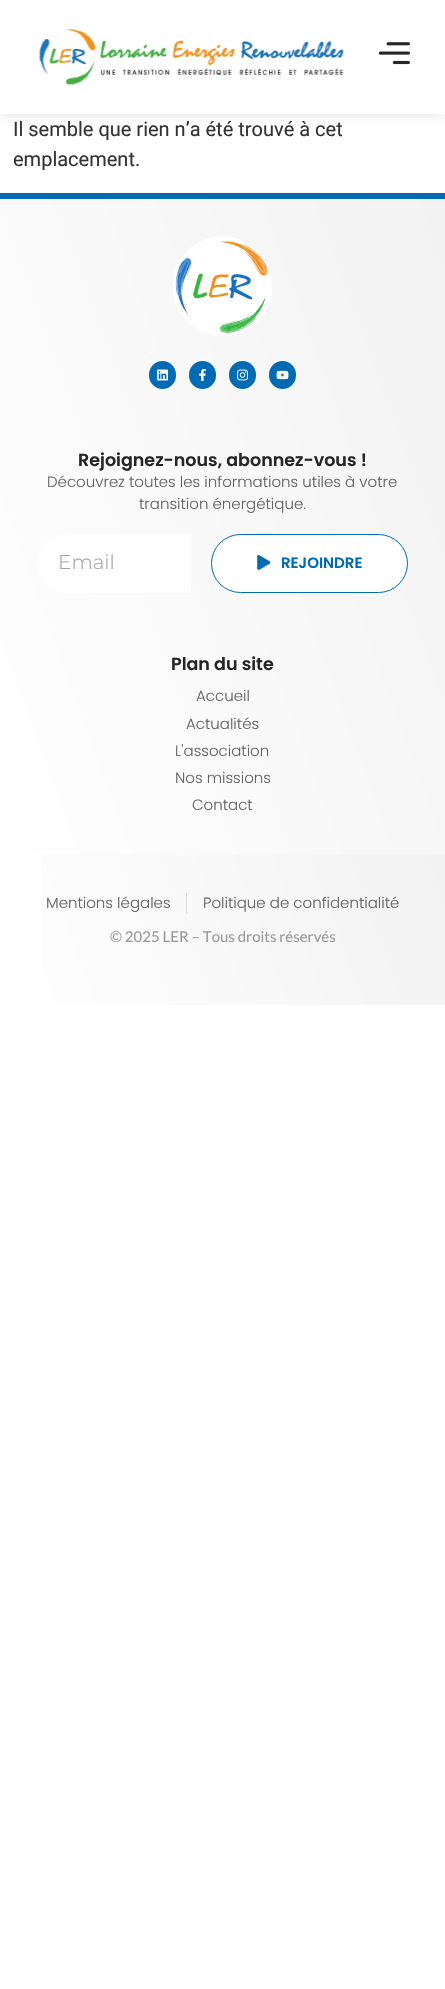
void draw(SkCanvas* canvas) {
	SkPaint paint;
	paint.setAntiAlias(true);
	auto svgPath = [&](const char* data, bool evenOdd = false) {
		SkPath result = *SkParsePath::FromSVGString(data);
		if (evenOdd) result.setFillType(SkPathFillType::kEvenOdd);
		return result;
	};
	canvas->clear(0xffffffff);
	paint.setColor(0x80bdbdbd);
	paint.setMaskFilter(SkMaskFilter::MakeBlur(kNormal_SkBlurStyle, 6));
	canvas->drawRect(SkRect::MakeXYWH(0, 0, 445, 114), paint);
	paint.setMaskFilter(nullptr);
	paint.setColor(0xffffffff);
	canvas->drawRect(SkRect::MakeXYWH(0, 0, 445, 114), paint);
	canvas->drawImageRect(SkImages::DeferredFromEncodedData(SkData::MakeFromFileName("img1.png")), SkRect::MakeXYWH(39, 29, 305, 56), SkSamplingOptions());
	canvas->drawImageRect(SkImages::DeferredFromEncodedData(SkData::MakeFromFileName("img2.png")), SkRect::MakeXYWH(379, 42, 31, 23), SkSamplingOptions());
	SkFont f1(fontMgr->matchFamilyStyle("Roboto", SkFontStyle::Normal()), 20);
	f1.setSubpixel(true);
	paint.setColor(0xff333333);
	canvas->drawString("Il semble que rien n’a été trouvé à cet", 13, 136, f1, paint);
	canvas->drawString("emplacement.", 13, 166, f1, paint);
	{
		const SkColor colors[] = {0xfff2f2f2, 0xffffffff};
		const float stops[] = {0, 1};
		const SkPoint ends[] = {{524, 416}, {-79, 636}};
		paint.setShader(SkGradientShader::MakeLinear(ends, colors, stops, 2, SkTileMode::kClamp));
		paint.setAlpha(255);
	}
	canvas->drawRect(SkRect::MakeXYWH(0, 199, 445, 655), paint);
	paint.setShader(nullptr);
	paint.setColor(0xff006bb3);
	canvas->drawRect(SkRect::MakeXYWH(0, 193, 445, 6), paint);
	canvas->drawImageRect(SkImages::DeferredFromEncodedData(SkData::MakeFromFileName("img3.png")), SkRect::MakeXYWH(173, 236, 99, 100), SkSamplingOptions());
	canvas->drawRoundRect(SkRect::MakeXYWH(149, 361, 27, 28), 13.5, 13.5, paint);
	canvas->drawImageRect(SkImages::DeferredFromEncodedData(SkData::MakeFromFileName("img4.png")), SkRect::MakeXYWH(157, 369, 11, 12), SkSamplingOptions());
	canvas->drawRoundRect(SkRect::MakeXYWH(189, 361, 27, 28), 13.5, 13.5, paint);
	canvas->drawImageRect(SkImages::DeferredFromEncodedData(SkData::MakeFromFileName("img5.png")), SkRect::MakeXYWH(199, 369, 7, 12), SkSamplingOptions());
	canvas->drawRoundRect(SkRect::MakeXYWH(229, 361, 27, 28), 13.5, 13.5, paint);
	canvas->drawImageRect(SkImages::DeferredFromEncodedData(SkData::MakeFromFileName("img6.png")), SkRect::MakeXYWH(237, 369, 11, 12), SkSamplingOptions());
	canvas->drawRoundRect(SkRect::MakeXYWH(269, 361, 27, 28), 13.5, 13.5, paint);
	canvas->drawImageRect(SkImages::DeferredFromEncodedData(SkData::MakeFromFileName("img7.png")), SkRect::MakeXYWH(276, 370, 13, 10), SkSamplingOptions());
	SkFont f2(fontMgr->matchFamilyStyle("Poppins", SkFontStyle(600, SkFontStyle::kNormal_Width, SkFontStyle::kUpright_Slant)), 17.5);
	f2.setSubpixel(true);
	paint.setColor(0xff262626);
	canvas->drawString("Rejoignez-nous, abonnez-vous !", 78, 466, f2, paint);
	SkFont f3(fontMgr->matchFamilyStyle("Poppins", SkFontStyle(300, SkFontStyle::kNormal_Width, SkFontStyle::kUpright_Slant)), 15);
	f3.setSubpixel(true);
	paint.setColor(0xff646464);
	canvas->drawString("Découvrez toutes les informations utiles à votre", 47, 487, f3, paint);
	canvas->drawString("transition énergétique.", 139, 509, f3, paint);
	paint.setColor(0xffffffff);
	canvas->drawPath(svgPath("M67.5 534H191V593H67.5C51 593 38 580 38 563.5C38 547 51 534 67.5 534Z"), paint);
	SkFont f4(fontMgr->matchFamilyStyle("Montserrat", SkFontStyle(300, SkFontStyle::kNormal_Width, SkFontStyle::kUpright_Slant)), 20);
	f4.setSubpixel(true);
	paint.setColor(0xffa2a2a2);
	canvas->drawString("Email", 58, 569, f4, paint);
	paint.setColor(0xffffffff);
	canvas->drawRoundRect(SkRect::MakeXYWH(211.5, 534.5, 196, 58), 29, 29, paint);
	paint.setStroke(true);
	paint.setStrokeWidth(1);
	paint.setColor(0xff006bb3);
	canvas->drawRoundRect(SkRect::MakeXYWH(211.5, 534.5, 196, 58), 29, 29, paint);
	canvas->drawImageRect(SkImages::DeferredFromEncodedData(SkData::MakeFromFileName("img8.png")), SkRect::MakeXYWH(257, 555, 14, 15), SkSamplingOptions());
	SkFont f5(fontMgr->matchFamilyStyle("Poppins", SkFontStyle(600, SkFontStyle::kNormal_Width, SkFontStyle::kUpright_Slant)), 15);
	f5.setSubpixel(true);
	paint.setStroke(false);
	canvas->drawString("REJOINDRE", 281, 568, f5, paint);
	paint.setColor(0xff262626);
	canvas->drawString("Plan du site", 171, 670, f2, paint);
	paint.setColor(0xff646464);
	canvas->drawString("Accueil", 196, 701, f3, paint);
	canvas->drawString("Actualités", 186, 729, f3, paint);
	canvas->drawString("L'association", 175, 756, f3, paint);
	canvas->drawString("Nos missions", 175, 783, f3, paint);
	canvas->drawString("Contact", 192, 810, f3, paint);
	{
		const SkColor colors[] = {0xfff2f2f2, 0xffffffff};
		const float stops[] = {0, 1};
		const SkPoint ends[] = {{443, 849}, {1.7, 1010}};
		paint.setShader(SkGradientShader::MakeLinear(ends, colors, stops, 2, SkTileMode::kClamp));
		paint.setAlpha(255);
	}
	canvas->drawRect(SkRect::MakeXYWH(41, 854, 404, 151), paint);
	paint.setShader(nullptr);
	paint.setColor(0xff646464);
	canvas->drawString("Mentions légales", 46, 908, f3, paint);
	paint.setColor(0xffdddddd);
	canvas->drawRect(SkRect::MakeXYWH(186, 893, 1, 21), paint);
	paint.setColor(0xff646464);
	canvas->drawString("Politique de confidentialité", 203, 908, f3, paint);
	SkFont f6(fontMgr->matchFamilyStyle("Lato", SkFontStyle::Normal()), 15);
	f6.setSubpixel(true);
	paint.setColor(0xff999999);
	canvas->drawString("© 2025 LER – Tous droits réservés", 110, 942, f6, paint);
}
